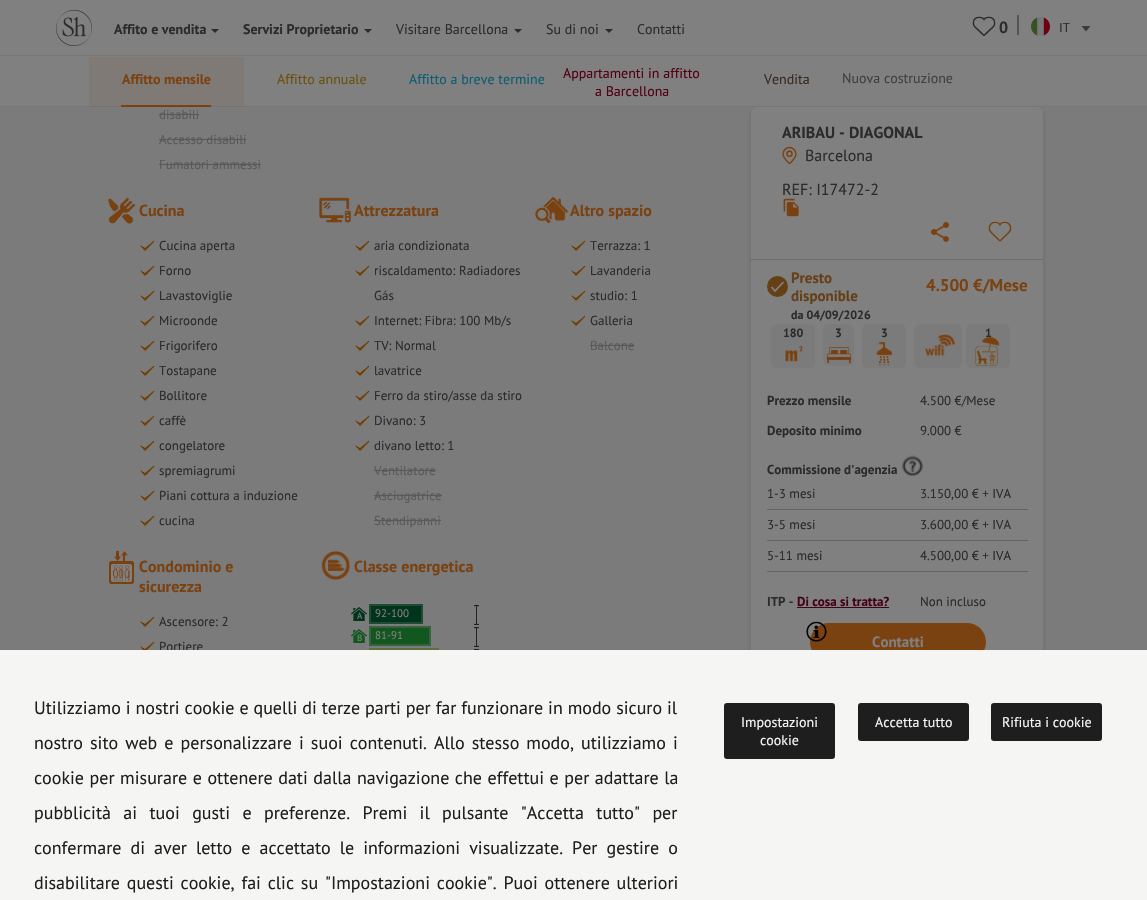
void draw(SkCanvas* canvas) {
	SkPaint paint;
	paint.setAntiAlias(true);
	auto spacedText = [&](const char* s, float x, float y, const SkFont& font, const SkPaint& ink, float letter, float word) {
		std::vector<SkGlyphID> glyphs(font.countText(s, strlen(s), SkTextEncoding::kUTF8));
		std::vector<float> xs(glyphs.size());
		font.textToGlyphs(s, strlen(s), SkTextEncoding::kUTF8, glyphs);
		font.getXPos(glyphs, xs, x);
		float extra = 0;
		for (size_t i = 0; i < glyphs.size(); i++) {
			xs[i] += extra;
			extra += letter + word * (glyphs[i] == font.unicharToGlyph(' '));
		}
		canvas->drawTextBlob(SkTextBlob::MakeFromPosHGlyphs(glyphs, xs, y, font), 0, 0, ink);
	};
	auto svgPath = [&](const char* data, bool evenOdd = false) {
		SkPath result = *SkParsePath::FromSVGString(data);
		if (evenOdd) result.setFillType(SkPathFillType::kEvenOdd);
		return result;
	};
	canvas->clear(0xff7b7b7b);
	canvas->save();
	canvas->clipPath(svgPath("M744 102H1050V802H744ZM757 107H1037C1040.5 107 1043 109.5 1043 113V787C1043 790.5 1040.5 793 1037 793H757C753.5 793 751 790.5 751 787V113C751 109.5 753.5 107 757 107Z", true), true);
	paint.setColor(0x29000000);
	paint.setMaskFilter(SkMaskFilter::MakeBlur(kNormal_SkBlurStyle, 2));
	canvas->drawRoundRect(SkRect::MakeXYWH(751, 109, 292, 686), 6, 6, paint);
	paint.setMaskFilter(nullptr);
	canvas->restore();
	paint.setColor(0xff808080);
	canvas->drawRect(SkRect::MakeXYWH(0, 0, 1147, 106), paint);
	paint.setColor(0xff767676);
	canvas->drawRect(SkRect::MakeXYWH(0, 55, 1147, 1), paint);
	canvas->drawImageRect(SkImages::DeferredFromEncodedData(SkData::MakeFromFileName("img1.png")), SkRect::MakeXYWH(56, 10, 36, 36), SkSamplingOptions());
	SkFont f1(fontMgr->matchFamilyStyle("PT Sans", SkFontStyle::Bold()), 14);
	f1.setSubpixel(true);
	paint.setColor(0xff2b2b2b);
	canvas->drawString("Affito e vendita", 114, 34, f1, paint);
	canvas->drawPath(svgPath("M211 29H219L215 33Z"), paint);
	canvas->drawString("Servizi Proprietario", 243, 34, f1, paint);
	canvas->drawPath(svgPath("M364 29H372L368 33Z"), paint);
	SkFont f2(fontMgr->matchFamilyStyle("PT Sans", SkFontStyle::Normal()), 14);
	f2.setSubpixel(true);
	canvas->drawString("Visitare Barcellona", 396, 34, f2, paint);
	canvas->drawPath(svgPath("M514 29H522L518 33Z"), paint);
	canvas->drawString("Su di noi", 546, 34, f2, paint);
	canvas->drawPath(svgPath("M605 29H613L609 33Z"), paint);
	canvas->drawString("Contatti", 637, 34, f2, paint);
	canvas->drawImageRect(SkImages::DeferredFromEncodedData(SkData::MakeFromFileName("img2.png")), SkRect::MakeXYWH(972, 16, 24, 20), SkSamplingOptions());
	SkFont f3(fontMgr->matchFamilyStyle("PT Sans", SkFontStyle::Bold()), 16);
	f3.setSubpixel(true);
	canvas->drawString("0", 999, 33, f3, paint);
	canvas->save();
	canvas->clipRect(SkRect::MakeXYWH(1017, 15, 2, 20));
	paint.setStroke(true);
	paint.setStrokeWidth(1);
	paint.setStrokeCap(SkPaint::kSquare_Cap);
	canvas->drawPath(svgPath("M1018 15V35"), paint);
	canvas->restore();
	paint.setStroke(false);
	paint.setColor(0xff3c3c3c);
	canvas->drawPath(svgPath("M1090.5 26L1086 31.5L1081.5 26Z"), paint);
	canvas->drawImageRect(SkImages::DeferredFromEncodedData(SkData::MakeFromFileName("img3.png")), SkRect::MakeXYWH(1031, 17, 19, 19), SkSamplingOptions());
	SkFont f4(fontMgr->matchFamilyStyle("PT Sans", SkFontStyle::Normal()), 13);
	f4.setSubpixel(true);
	paint.setColor(0xff2b2b2b);
	canvas->drawString("IT", 1059, 32, f4, paint);
	paint.setColor(0xff767676);
	canvas->drawRect(SkRect::MakeXYWH(0, 106, 1147, 1), paint);
	paint.setColor(0x1a7a4111);
	canvas->drawRect(SkRect::MakeXYWH(89, 57, 155, 50), paint);
	paint.setColor(0xff7a4111);
	canvas->drawRect(SkRect::MakeXYWH(121, 105, 90, 2), paint);
	canvas->drawString("Affitto mensile", 122, 84, f1, paint);
	paint.setColor(0xff69510d);
	canvas->drawString("Affitto annuale", 277, 84, f2, paint);
	paint.setColor(0xff0b5d72);
	canvas->drawString("Affitto a breve termine", 409, 84, f2, paint);
	paint.setColor(0xff530011);
	canvas->drawString("Appartamenti in affitto", 563, 78, f2, paint);
	canvas->drawString("a Barcellona", 595, 96, f2, paint);
	paint.setColor(0xff392a1e);
	canvas->drawString("Vendita", 764, 84, f2, paint);
	paint.setColor(0xff404040);
	canvas->drawString("Nuova costruzione", 842, 83, f2, paint);
	paint.setColor(0xff595959);
	canvas->drawString("disabili", 159, 119, f4, paint);
	canvas->drawRect(SkRect::MakeXYWH(159, 114, 40, 1), paint);
	canvas->drawString("Accesso disabili", 159, 144, f4, paint);
	canvas->drawRect(SkRect::MakeXYWH(159, 139, 87, 1), paint);
	canvas->drawString("Fumatori ammessi", 159, 169, f4, paint);
	canvas->drawRect(SkRect::MakeXYWH(159, 164, 102, 1), paint);
	canvas->drawImageRect(SkImages::DeferredFromEncodedData(SkData::MakeFromFileName("img4.png")), SkRect::MakeXYWH(108, 197, 28, 27), SkSamplingOptions());
	paint.setColor(0xff7a4111);
	canvas->drawString("Cucina", 139, 216, f3, paint);
	canvas->drawImageRect(SkImages::DeferredFromEncodedData(SkData::MakeFromFileName("img5.png")), SkRect::MakeXYWH(140, 240, 15, 12), SkSamplingOptions());
	paint.setColor(0xff2b2b2b);
	canvas->drawString("Cucina aperta", 159, 250, f4, paint);
	canvas->drawImageRect(SkImages::DeferredFromEncodedData(SkData::MakeFromFileName("img5.png")), SkRect::MakeXYWH(140, 265, 15, 12), SkSamplingOptions());
	canvas->drawString("Forno", 159, 275, f4, paint);
	canvas->drawImageRect(SkImages::DeferredFromEncodedData(SkData::MakeFromFileName("img5.png")), SkRect::MakeXYWH(140, 290, 15, 12), SkSamplingOptions());
	canvas->drawString("Lavastoviglie", 159, 300, f4, paint);
	canvas->drawImageRect(SkImages::DeferredFromEncodedData(SkData::MakeFromFileName("img5.png")), SkRect::MakeXYWH(140, 315, 15, 12), SkSamplingOptions());
	canvas->drawString("Microonde", 159, 325, f4, paint);
	canvas->drawImageRect(SkImages::DeferredFromEncodedData(SkData::MakeFromFileName("img5.png")), SkRect::MakeXYWH(140, 340, 15, 12), SkSamplingOptions());
	canvas->drawString("Frigorifero", 159, 350, f4, paint);
	canvas->drawImageRect(SkImages::DeferredFromEncodedData(SkData::MakeFromFileName("img5.png")), SkRect::MakeXYWH(140, 365, 15, 12), SkSamplingOptions());
	canvas->drawString("Tostapane", 159, 375, f4, paint);
	canvas->drawImageRect(SkImages::DeferredFromEncodedData(SkData::MakeFromFileName("img5.png")), SkRect::MakeXYWH(140, 390, 15, 12), SkSamplingOptions());
	canvas->drawString("Bollitore", 159, 400, f4, paint);
	canvas->drawImageRect(SkImages::DeferredFromEncodedData(SkData::MakeFromFileName("img5.png")), SkRect::MakeXYWH(140, 415, 15, 12), SkSamplingOptions());
	canvas->drawString("caffè", 159, 425, f4, paint);
	canvas->drawImageRect(SkImages::DeferredFromEncodedData(SkData::MakeFromFileName("img5.png")), SkRect::MakeXYWH(140, 440, 15, 12), SkSamplingOptions());
	canvas->drawString("congelatore", 159, 450, f4, paint);
	canvas->drawImageRect(SkImages::DeferredFromEncodedData(SkData::MakeFromFileName("img5.png")), SkRect::MakeXYWH(140, 465, 15, 12), SkSamplingOptions());
	canvas->drawString("spremiagrumi", 159, 475, f4, paint);
	canvas->drawImageRect(SkImages::DeferredFromEncodedData(SkData::MakeFromFileName("img5.png")), SkRect::MakeXYWH(140, 490, 15, 12), SkSamplingOptions());
	canvas->drawString("Piani cottura a induzione", 159, 500, f4, paint);
	canvas->drawImageRect(SkImages::DeferredFromEncodedData(SkData::MakeFromFileName("img5.png")), SkRect::MakeXYWH(140, 515, 15, 12), SkSamplingOptions());
	canvas->drawString("cucina", 159, 525, f4, paint);
	canvas->drawImageRect(SkImages::DeferredFromEncodedData(SkData::MakeFromFileName("img6.png")), SkRect::MakeXYWH(319, 197, 32, 26), SkSamplingOptions());
	paint.setColor(0xff7a4111);
	canvas->drawString("Attrezzatura", 354, 216, f3, paint);
	canvas->drawImageRect(SkImages::DeferredFromEncodedData(SkData::MakeFromFileName("img5.png")), SkRect::MakeXYWH(355, 240, 15, 12), SkSamplingOptions());
	paint.setColor(0xff2b2b2b);
	canvas->drawString("aria condizionata", 374, 250, f4, paint);
	canvas->drawImageRect(SkImages::DeferredFromEncodedData(SkData::MakeFromFileName("img5.png")), SkRect::MakeXYWH(355, 265, 15, 12), SkSamplingOptions());
	canvas->drawString("riscaldamento: Radiadores", 374, 275, f4, paint);
	canvas->drawString("Gás", 374, 300, f4, paint);
	canvas->drawImageRect(SkImages::DeferredFromEncodedData(SkData::MakeFromFileName("img5.png")), SkRect::MakeXYWH(355, 315, 15, 12), SkSamplingOptions());
	canvas->drawString("Internet: Fibra: 100 Mb/s", 374, 325, f4, paint);
	canvas->drawImageRect(SkImages::DeferredFromEncodedData(SkData::MakeFromFileName("img5.png")), SkRect::MakeXYWH(355, 340, 15, 12), SkSamplingOptions());
	canvas->drawString("TV: Normal", 374, 350, f4, paint);
	canvas->drawImageRect(SkImages::DeferredFromEncodedData(SkData::MakeFromFileName("img5.png")), SkRect::MakeXYWH(355, 365, 15, 12), SkSamplingOptions());
	canvas->drawString("lavatrice", 374, 375, f4, paint);
	canvas->drawImageRect(SkImages::DeferredFromEncodedData(SkData::MakeFromFileName("img5.png")), SkRect::MakeXYWH(355, 390, 15, 12), SkSamplingOptions());
	canvas->drawString("Ferro da stiro/asse da stiro", 374, 400, f4, paint);
	canvas->drawImageRect(SkImages::DeferredFromEncodedData(SkData::MakeFromFileName("img5.png")), SkRect::MakeXYWH(355, 415, 15, 12), SkSamplingOptions());
	canvas->drawString("Divano: 3", 374, 425, f4, paint);
	canvas->drawImageRect(SkImages::DeferredFromEncodedData(SkData::MakeFromFileName("img5.png")), SkRect::MakeXYWH(355, 440, 15, 12), SkSamplingOptions());
	canvas->drawString("divano letto: 1", 374, 450, f4, paint);
	paint.setColor(0xff595959);
	canvas->drawString("Ventilatore", 374, 475, f4, paint);
	canvas->drawRect(SkRect::MakeXYWH(374, 470, 62, 1), paint);
	canvas->drawString("Asciugatrice", 374, 500, f4, paint);
	canvas->drawRect(SkRect::MakeXYWH(374, 495, 68, 1), paint);
	canvas->drawString("Stendipanni", 374, 525, f4, paint);
	canvas->drawRect(SkRect::MakeXYWH(374, 520, 67, 1), paint);
	canvas->drawImageRect(SkImages::DeferredFromEncodedData(SkData::MakeFromFileName("img7.png")), SkRect::MakeXYWH(535, 196, 33, 28), SkSamplingOptions());
	paint.setColor(0xff7a4111);
	canvas->drawString("Altro spazio", 570, 216, f3, paint);
	canvas->drawImageRect(SkImages::DeferredFromEncodedData(SkData::MakeFromFileName("img5.png")), SkRect::MakeXYWH(571, 240, 15, 12), SkSamplingOptions());
	paint.setColor(0xff2b2b2b);
	canvas->drawString("Terrazza: 1", 590, 250, f4, paint);
	canvas->drawImageRect(SkImages::DeferredFromEncodedData(SkData::MakeFromFileName("img5.png")), SkRect::MakeXYWH(571, 265, 15, 12), SkSamplingOptions());
	canvas->drawString("Lavanderia", 590, 275, f4, paint);
	canvas->drawImageRect(SkImages::DeferredFromEncodedData(SkData::MakeFromFileName("img5.png")), SkRect::MakeXYWH(571, 290, 15, 12), SkSamplingOptions());
	canvas->drawString("studio: 1", 590, 300, f4, paint);
	canvas->drawImageRect(SkImages::DeferredFromEncodedData(SkData::MakeFromFileName("img5.png")), SkRect::MakeXYWH(571, 315, 15, 12), SkSamplingOptions());
	canvas->drawString("Galleria", 590, 325, f4, paint);
	paint.setColor(0xff595959);
	canvas->drawString("Balcone", 590, 350, f4, paint);
	canvas->drawRect(SkRect::MakeXYWH(590, 345, 44, 1), paint);
	canvas->drawImageRect(SkImages::DeferredFromEncodedData(SkData::MakeFromFileName("img8.png")), SkRect::MakeXYWH(109, 551, 25, 33), SkSamplingOptions());
	paint.setColor(0xff7a4111);
	canvas->drawString("Condominio e", 139, 572, f3, paint);
	canvas->drawString("sicurezza", 139, 592, f3, paint);
	canvas->drawImageRect(SkImages::DeferredFromEncodedData(SkData::MakeFromFileName("img5.png")), SkRect::MakeXYWH(140, 616, 15, 12), SkSamplingOptions());
	paint.setColor(0xff2b2b2b);
	canvas->drawString("Ascensore: 2", 159, 626, f4, paint);
	canvas->drawImageRect(SkImages::DeferredFromEncodedData(SkData::MakeFromFileName("img9.png")), SkRect::MakeXYWH(140, 641, 15, 9), SkSamplingOptions());
	canvas->drawString("Portiere", 159, 651, f4, paint);
	canvas->drawImageRect(SkImages::DeferredFromEncodedData(SkData::MakeFromFileName("img10.png")), SkRect::MakeXYWH(321, 551, 30, 29), SkSamplingOptions());
	paint.setColor(0xff7a4111);
	canvas->drawString("Classe energetica", 354, 572, f3, paint);
	canvas->drawImageRect(SkImages::DeferredFromEncodedData(SkData::MakeFromFileName("img11.png")), SkRect::MakeXYWH(351, 607, 16, 14), SkSamplingOptions());
	SkFont f5(fontMgr->matchFamilyStyle("PT Sans", SkFontStyle::Normal()), 9);
	f5.setSubpixel(true);
	paint.setColor(0xff808080);
	canvas->drawString("A", 357, 619, f5, paint);
	paint.setColor(0xff00341b);
	canvas->drawRect(SkRect::MakeXYWH(370, 605, 52, 18), paint);
	paint.setStroke(true);
	paint.setStrokeWidth(2);
	paint.setStrokeCap(SkPaint::kButt_Cap);
	paint.setColor(0xff224836);
	canvas->drawRect(SkRect::MakeXYWH(370, 605, 52, 18), paint);
	SkFont f6(fontMgr->matchFamilyStyle("PT Sans", SkFontStyle::Normal()), 11);
	f6.setSubpixel(true);
	paint.setStroke(false);
	paint.setColor(0xff808080);
	canvas->drawString("92-100", 375, 617, f6, paint);
	canvas->drawImageRect(SkImages::DeferredFromEncodedData(SkData::MakeFromFileName("img12.png")), SkRect::MakeXYWH(474, 605, 5, 20), SkSamplingOptions());
	canvas->drawImageRect(SkImages::DeferredFromEncodedData(SkData::MakeFromFileName("img13.png")), SkRect::MakeXYWH(351, 629, 16, 14), SkSamplingOptions());
	canvas->drawString("B", 357, 641, f5, paint);
	paint.setColor(0xff135720);
	canvas->drawRect(SkRect::MakeXYWH(370, 627, 60, 18), paint);
	paint.setStroke(true);
	paint.setColor(0xff36623f);
	canvas->drawRect(SkRect::MakeXYWH(370, 627, 60, 18), paint);
	paint.setStroke(false);
	paint.setColor(0xff808080);
	canvas->drawString("81-91", 375, 639, f6, paint);
	canvas->drawImageRect(SkImages::DeferredFromEncodedData(SkData::MakeFromFileName("img12.png")), SkRect::MakeXYWH(474, 627, 5, 20), SkSamplingOptions());
	paint.setStroke(true);
	paint.setColor(0xff5b6e40);
	canvas->drawRect(SkRect::MakeXYWH(370, 649, 68, 18), paint);
	canvas->drawImageRect(SkImages::DeferredFromEncodedData(SkData::MakeFromFileName("img14.png")), SkRect::MakeXYWH(474, 649, 5, 1), SkSamplingOptions());
	paint.setStroke(false);
	paint.setColor(0xd9808080);
	canvas->drawRoundRect(SkRect::MakeXYWH(751, 107, 292, 686), 6, 6, paint);
	paint.setColor(0xff6e6e6e);
	canvas->drawRect(SkRect::MakeXYWH(751, 259, 292, 1), paint);
	paint.setColor(0xff2b2b2b);
	canvas->drawString("ARIBAU - DIAGONAL", 782, 138, f3, paint);
	canvas->drawImageRect(SkImages::DeferredFromEncodedData(SkData::MakeFromFileName("img15.png")), SkRect::MakeXYWH(782, 146, 15, 18), SkSamplingOptions());
	SkFont f7(fontMgr->matchFamilyStyle("PT Sans", SkFontStyle::Normal()), 16);
	f7.setSubpixel(true);
	canvas->drawString("Barcelona", 805, 161, f7, paint);
	canvas->drawString("REF: I17472-2", 782, 195, f7, paint);
	canvas->drawImageRect(SkImages::DeferredFromEncodedData(SkData::MakeFromFileName("img16.png")), SkRect::MakeXYWH(783, 198, 16, 19), SkSamplingOptions());
	canvas->drawImageRect(SkImages::DeferredFromEncodedData(SkData::MakeFromFileName("img17.png")), SkRect::MakeXYWH(931, 222, 18, 20), SkSamplingOptions());
	canvas->drawImageRect(SkImages::DeferredFromEncodedData(SkData::MakeFromFileName("img18.png")), SkRect::MakeXYWH(988, 221, 24, 21), SkSamplingOptions());
	paint.setColor(0xff654016);
	canvas->drawCircle(777.5, 286.5, 10.5, paint);
	paint.setStroke(true);
	paint.setStrokeWidth(1.8);
	paint.setColor(0xff808080);
	canvas->drawPath(svgPath("M771.5 287L775 291L783.5 282"), paint);
	SkFont f8(fontMgr->matchFamilyStyle("PT Sans", SkFontStyle::Bold()), 15);
	f8.setSubpixel(true);
	paint.setStroke(false);
	paint.setColor(0xff654016);
	canvas->drawString("Presto", 791, 283, f8, paint);
	canvas->drawString("disponible", 791, 301, f8, paint);
	SkFont f9(fontMgr->matchFamilyStyle("PT Sans", SkFontStyle::Bold()), 12);
	f9.setSubpixel(true);
	paint.setColor(0xff2b2b2b);
	canvas->drawString("da 04/09/2026", 791, 319, f9, paint);
	SkFont f10(fontMgr->matchFamilyStyle("PT Sans", SkFontStyle::Bold()), 17);
	f10.setSubpixel(true);
	paint.setColor(0xff7a4111);
	canvas->drawString("4.500 €/Mese", 926, 291, f10, paint);
	paint.setColor(0xff7b7b7b);
	canvas->drawRoundRect(SkRect::MakeXYWH(771, 324, 44, 44), 6, 6, paint);
	canvas->drawImageRect(SkImages::DeferredFromEncodedData(SkData::MakeFromFileName("img19.png")), SkRect::MakeXYWH(785, 346, 18, 16), SkSamplingOptions());
	paint.setColor(0xff2b2b2b);
	canvas->drawString("180", 783, 337, f9, paint);
	paint.setColor(0xff7b7b7b);
	canvas->drawRoundRect(SkRect::MakeXYWH(823, 324, 31, 42), 6, 6, paint);
	canvas->drawImageRect(SkImages::DeferredFromEncodedData(SkData::MakeFromFileName("img20.png")), SkRect::MakeXYWH(827, 347, 24, 16), SkSamplingOptions());
	paint.setColor(0xff2b2b2b);
	canvas->drawString("3", 835, 337, f9, paint);
	paint.setColor(0xff7b7b7b);
	canvas->drawRoundRect(SkRect::MakeXYWH(862, 324, 44, 44), 6, 6, paint);
	canvas->drawImageRect(SkImages::DeferredFromEncodedData(SkData::MakeFromFileName("img21.png")), SkRect::MakeXYWH(876, 342, 17, 24), SkSamplingOptions());
	paint.setColor(0xff2b2b2b);
	canvas->drawString("3", 881, 337, f9, paint);
	paint.setColor(0xff7b7b7b);
	canvas->drawRoundRect(SkRect::MakeXYWH(914, 324, 44, 44), 6, 6, paint);
	canvas->drawRoundRect(SkRect::MakeXYWH(918, 324, 44, 44), 6, 6, paint);
	canvas->drawImageRect(SkImages::DeferredFromEncodedData(SkData::MakeFromFileName("img22.png")), SkRect::MakeXYWH(925, 334, 30, 23), SkSamplingOptions());
	canvas->drawRoundRect(SkRect::MakeXYWH(966, 324, 44, 44), 6, 6, paint);
	canvas->drawImageRect(SkImages::DeferredFromEncodedData(SkData::MakeFromFileName("img23.png")), SkRect::MakeXYWH(975, 336, 25, 30), SkSamplingOptions());
	paint.setColor(0xff2b2b2b);
	canvas->drawString("1", 985, 337, f9, paint);
	SkFont f11(fontMgr->matchFamilyStyle("PT Sans", SkFontStyle::Bold()), 13);
	f11.setSubpixel(true);
	canvas->drawString("Prezzo mensile", 767, 405, f11, paint);
	canvas->drawString("4.500 €/Mese", 920, 405, f4, paint);
	canvas->drawString("Deposito minimo", 767, 435, f11, paint);
	canvas->drawString("9.000 €", 920, 435, f4, paint);
	canvas->drawString("Commissione d'agenzia", 767, 474, f11, paint);
	canvas->drawImageRect(SkImages::DeferredFromEncodedData(SkData::MakeFromFileName("img24.png")), SkRect::MakeXYWH(902, 455, 21, 21), SkSamplingOptions());
	paint.setColor(0xff646464);
	canvas->drawRect(SkRect::MakeXYWH(767, 509, 261, 1), paint);
	paint.setColor(0xff2b2b2b);
	canvas->drawString("1-3 mesi", 767, 498, f4, paint);
	canvas->drawString("3.150,00 € + IVA", 920, 498, f4, paint);
	paint.setColor(0xff646464);
	canvas->drawRect(SkRect::MakeXYWH(767, 540, 261, 1), paint);
	paint.setColor(0xff2b2b2b);
	canvas->drawString("3-5 mesi", 767, 529, f4, paint);
	canvas->drawString("3.600,00 € + IVA", 920, 529, f4, paint);
	paint.setColor(0xff646464);
	canvas->drawRect(SkRect::MakeXYWH(767, 571, 261, 1), paint);
	paint.setColor(0xff2b2b2b);
	canvas->drawString("5-11 mesi", 767, 560, f4, paint);
	canvas->drawString("4.500,00 € + IVA", 920, 560, f4, paint);
	canvas->drawString("ITP -", 767, 606, f11, paint);
	paint.setColor(0xff440118);
	canvas->drawString("Di cosa si tratta?", 797, 606, f11, paint);
	canvas->drawRect(SkRect::MakeXYWH(797, 607, 92, 1), paint);
	paint.setColor(0xff2b2b2b);
	canvas->drawString("Non incluso", 920, 606, f4, paint);
	paint.setColor(0xff7a4111);
	canvas->drawRoundRect(SkRect::MakeXYWH(810, 623, 176, 38), 19, 19, paint);
	canvas->drawImageRect(SkImages::DeferredFromEncodedData(SkData::MakeFromFileName("img25.png")), SkRect::MakeXYWH(806, 621, 21, 21), SkSamplingOptions());
	paint.setColor(0xff808080);
	canvas->drawString("Contatti", 872, 647, f8, paint);
	paint.setColor(0xfff5f5f4);
	canvas->drawRect(SkRect::MakeXYWH(0, 650, 1147, 250), paint);
	SkFont f12(fontMgr->matchFamilyStyle("PT Sans", SkFontStyle::Normal()), 18);
	f12.setSubpixel(true);
	paint.setColor(0xff1e1e1e);
	spacedText("Utilizziamo i nostri cookie e quelli di terze parti per far funzionare in modo sicuro il", 34, 714, f12, paint, 0, 0.1);
	spacedText("nostro sito web e personalizzare i suoi contenuti. Allo stesso modo, utilizziamo i", 34, 749, f12, paint, 0, 2.25);
	spacedText("cookie per misurare e ottenere dati dalla navigazione che effettui e per adattare la", 34, 784, f12, paint, 0, 0.75);
	spacedText("pubblicità ai tuoi gusti e preferenze. Premi il pulsante \"Accetta tutto\" per", 34, 819, f12, paint, 0, 7.6);
	spacedText("confermare di aver letto e accettato le informazioni visualizzate. Per gestire o", 34, 854, f12, paint, 0, 4.25);
	spacedText("disabilitare questi cookie, fai clic su \"Impostazioni cookie\". Puoi ottenere ulteriori", 34, 889, f12, paint, 0, 2);
	canvas->drawRoundRect(SkRect::MakeXYWH(724, 703, 111, 56), 3, 3, paint);
	paint.setColor(0xfff5f5f4);
	canvas->drawString("Impostazioni", 741, 727, f2, paint);
	canvas->drawString("cookie", 760, 745, f2, paint);
	paint.setColor(0xff1e1e1e);
	canvas->drawRoundRect(SkRect::MakeXYWH(858, 703, 111, 38), 3, 3, paint);
	paint.setColor(0xfff5f5f4);
	canvas->drawString("Accetta tutto", 875, 727, f2, paint);
	paint.setColor(0xff1e1e1e);
	canvas->drawRoundRect(SkRect::MakeXYWH(991, 703, 111, 38), 3, 3, paint);
	paint.setColor(0xfff5f5f4);
	canvas->drawString("Rifiuta i cookie", 1002, 727, f2, paint);
}
